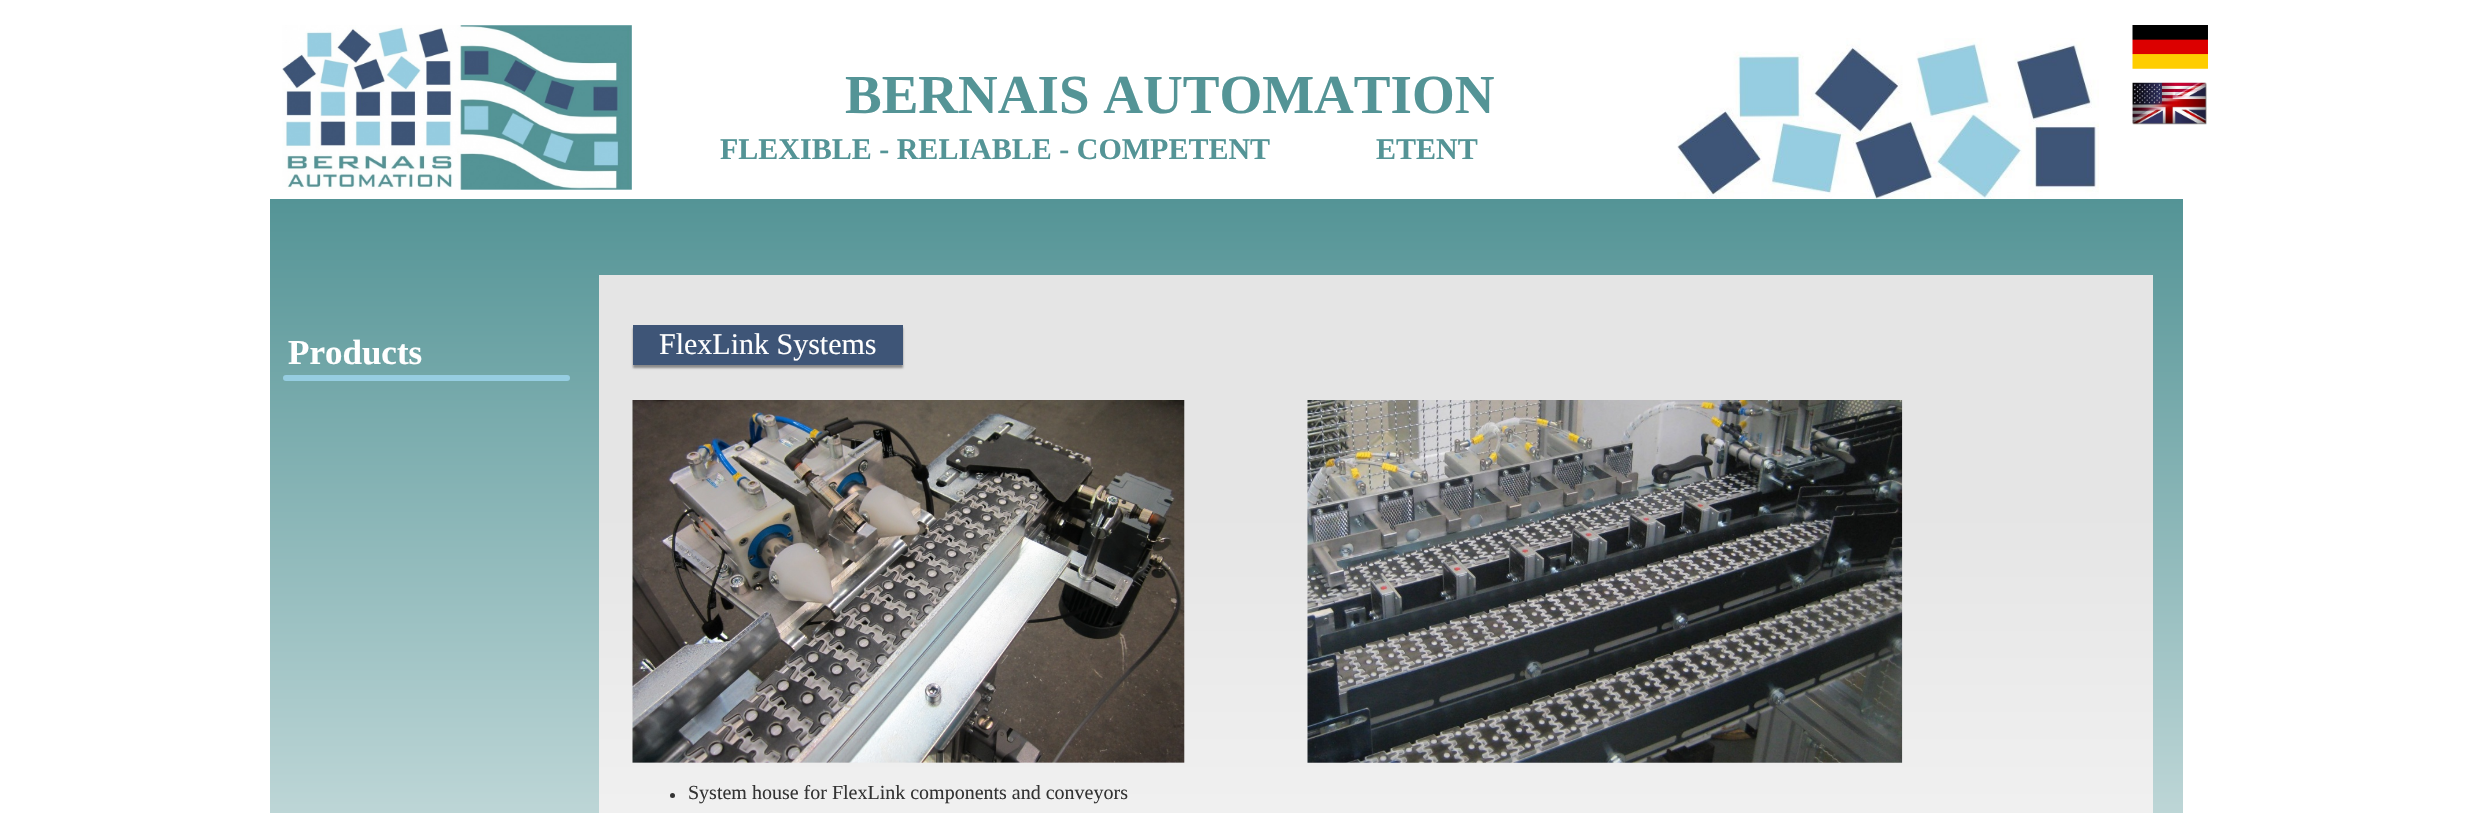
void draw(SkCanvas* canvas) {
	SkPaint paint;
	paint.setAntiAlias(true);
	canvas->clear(0xffffffff);
	canvas->drawImageRect(SkImages::DeferredFromEncodedData(SkData::MakeFromFileName("img1.png")), SkRect::MakeXYWH(282, 25, 350, 165), SkSamplingOptions());
	SkFont f1(fontMgr->matchFamilyStyle("Liberation Serif", SkFontStyle::Bold()), 55);
	f1.setSubpixel(true);
	paint.setColor(0xff549496);
	canvas->drawString("BERNAIS AUTOMATION", 845, 113, f1, paint);
	canvas->drawImageRect(SkImages::DeferredFromEncodedData(SkData::MakeFromFileName("img2.png")), SkRect::MakeXYWH(1677, 38, 422, 161), SkSamplingOptions());
	canvas->drawImageRect(SkImages::DeferredFromEncodedData(SkData::MakeFromFileName("img3.png")), SkRect::MakeXYWH(2132, 25, 76, 44), SkSamplingOptions());
	canvas->drawImageRect(SkImages::DeferredFromEncodedData(SkData::MakeFromFileName("img4.png")), SkRect::MakeXYWH(2132, 82, 75, 43), SkSamplingOptions());
	SkFont f2(fontMgr->matchFamilyStyle("Liberation Serif", SkFontStyle::Bold()), 30);
	f2.setSubpixel(true);
	canvas->drawString("FLEXIBLE - RELIABLE - COMPETENT", 720, 159, f2, paint);
	canvas->drawString("ETENT", 1376, 159, f2, paint);
	{
		const SkColor colors[] = {0xff549496, 0xffffffff};
		const float stops[] = {0, 1};
		const SkPoint ends[] = {{1226, 199}, {1226, 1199}};
		paint.setShader(SkGradientShader::MakeLinear(ends, colors, stops, 2, SkTileMode::kClamp));
		paint.setAlpha(255);
	}
	canvas->drawRect(SkRect::MakeXYWH(270, 199, 1913, 614), paint);
	{
		const SkColor colors[] = {0xffe5e5e5, 0xffffffff};
		const float stops[] = {0.25, 1};
		const SkPoint ends[] = {{1376, 275}, {1376, 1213}};
		paint.setShader(SkGradientShader::MakeLinear(ends, colors, stops, 2, SkTileMode::kClamp));
		paint.setAlpha(255);
	}
	canvas->drawRect(SkRect::MakeXYWH(599, 275, 1554, 538), paint);
	SkFont f3(fontMgr->matchFamilyStyle("Liberation Serif", SkFontStyle::Bold()), 35);
	f3.setSubpixel(true);
	paint.setShader(nullptr);
	paint.setColor(0xffffffff);
	canvas->drawString("Products", 288, 364, f3, paint);
	paint.setColor(0x66000000);
	paint.setMaskFilter(SkMaskFilter::MakeBlur(kNormal_SkBlurStyle, 1));
	canvas->drawRect(SkRect::MakeXYWH(633, 328, 270, 40), paint);
	paint.setMaskFilter(nullptr);
	paint.setColor(0xff3e5577);
	canvas->drawRect(SkRect::MakeXYWH(633, 325, 270, 40), paint);
	SkFont f4(fontMgr->matchFamilyStyle("Liberation Serif", SkFontStyle::Normal()), 30);
	f4.setSubpixel(true);
	paint.setColor(0xffffffff);
	canvas->drawString("FlexLink Systems", 659, 354, f4, paint);
	paint.setColor(0xff96cde1);
	canvas->drawRoundRect(SkRect::MakeXYWH(283, 375, 287, 6), 3, 3, paint);
	canvas->drawImageRect(SkImages::DeferredFromEncodedData(SkData::MakeFromFileName("img5.png")), SkRect::MakeXYWH(632, 400, 553, 363), SkSamplingOptions());
	canvas->drawImageRect(SkImages::DeferredFromEncodedData(SkData::MakeFromFileName("img6.png")), SkRect::MakeXYWH(1307, 400, 596, 363), SkSamplingOptions());
	paint.setColor(0xff333333);
	canvas->drawCircle(672.5, 795.5, 2.5, paint);
	SkFont f5(fontMgr->matchFamilyStyle("Liberation Serif", SkFontStyle::Normal()), 20);
	f5.setSubpixel(true);
	canvas->drawString("System house for FlexLink components and conveyors", 688, 799, f5, paint);
}
